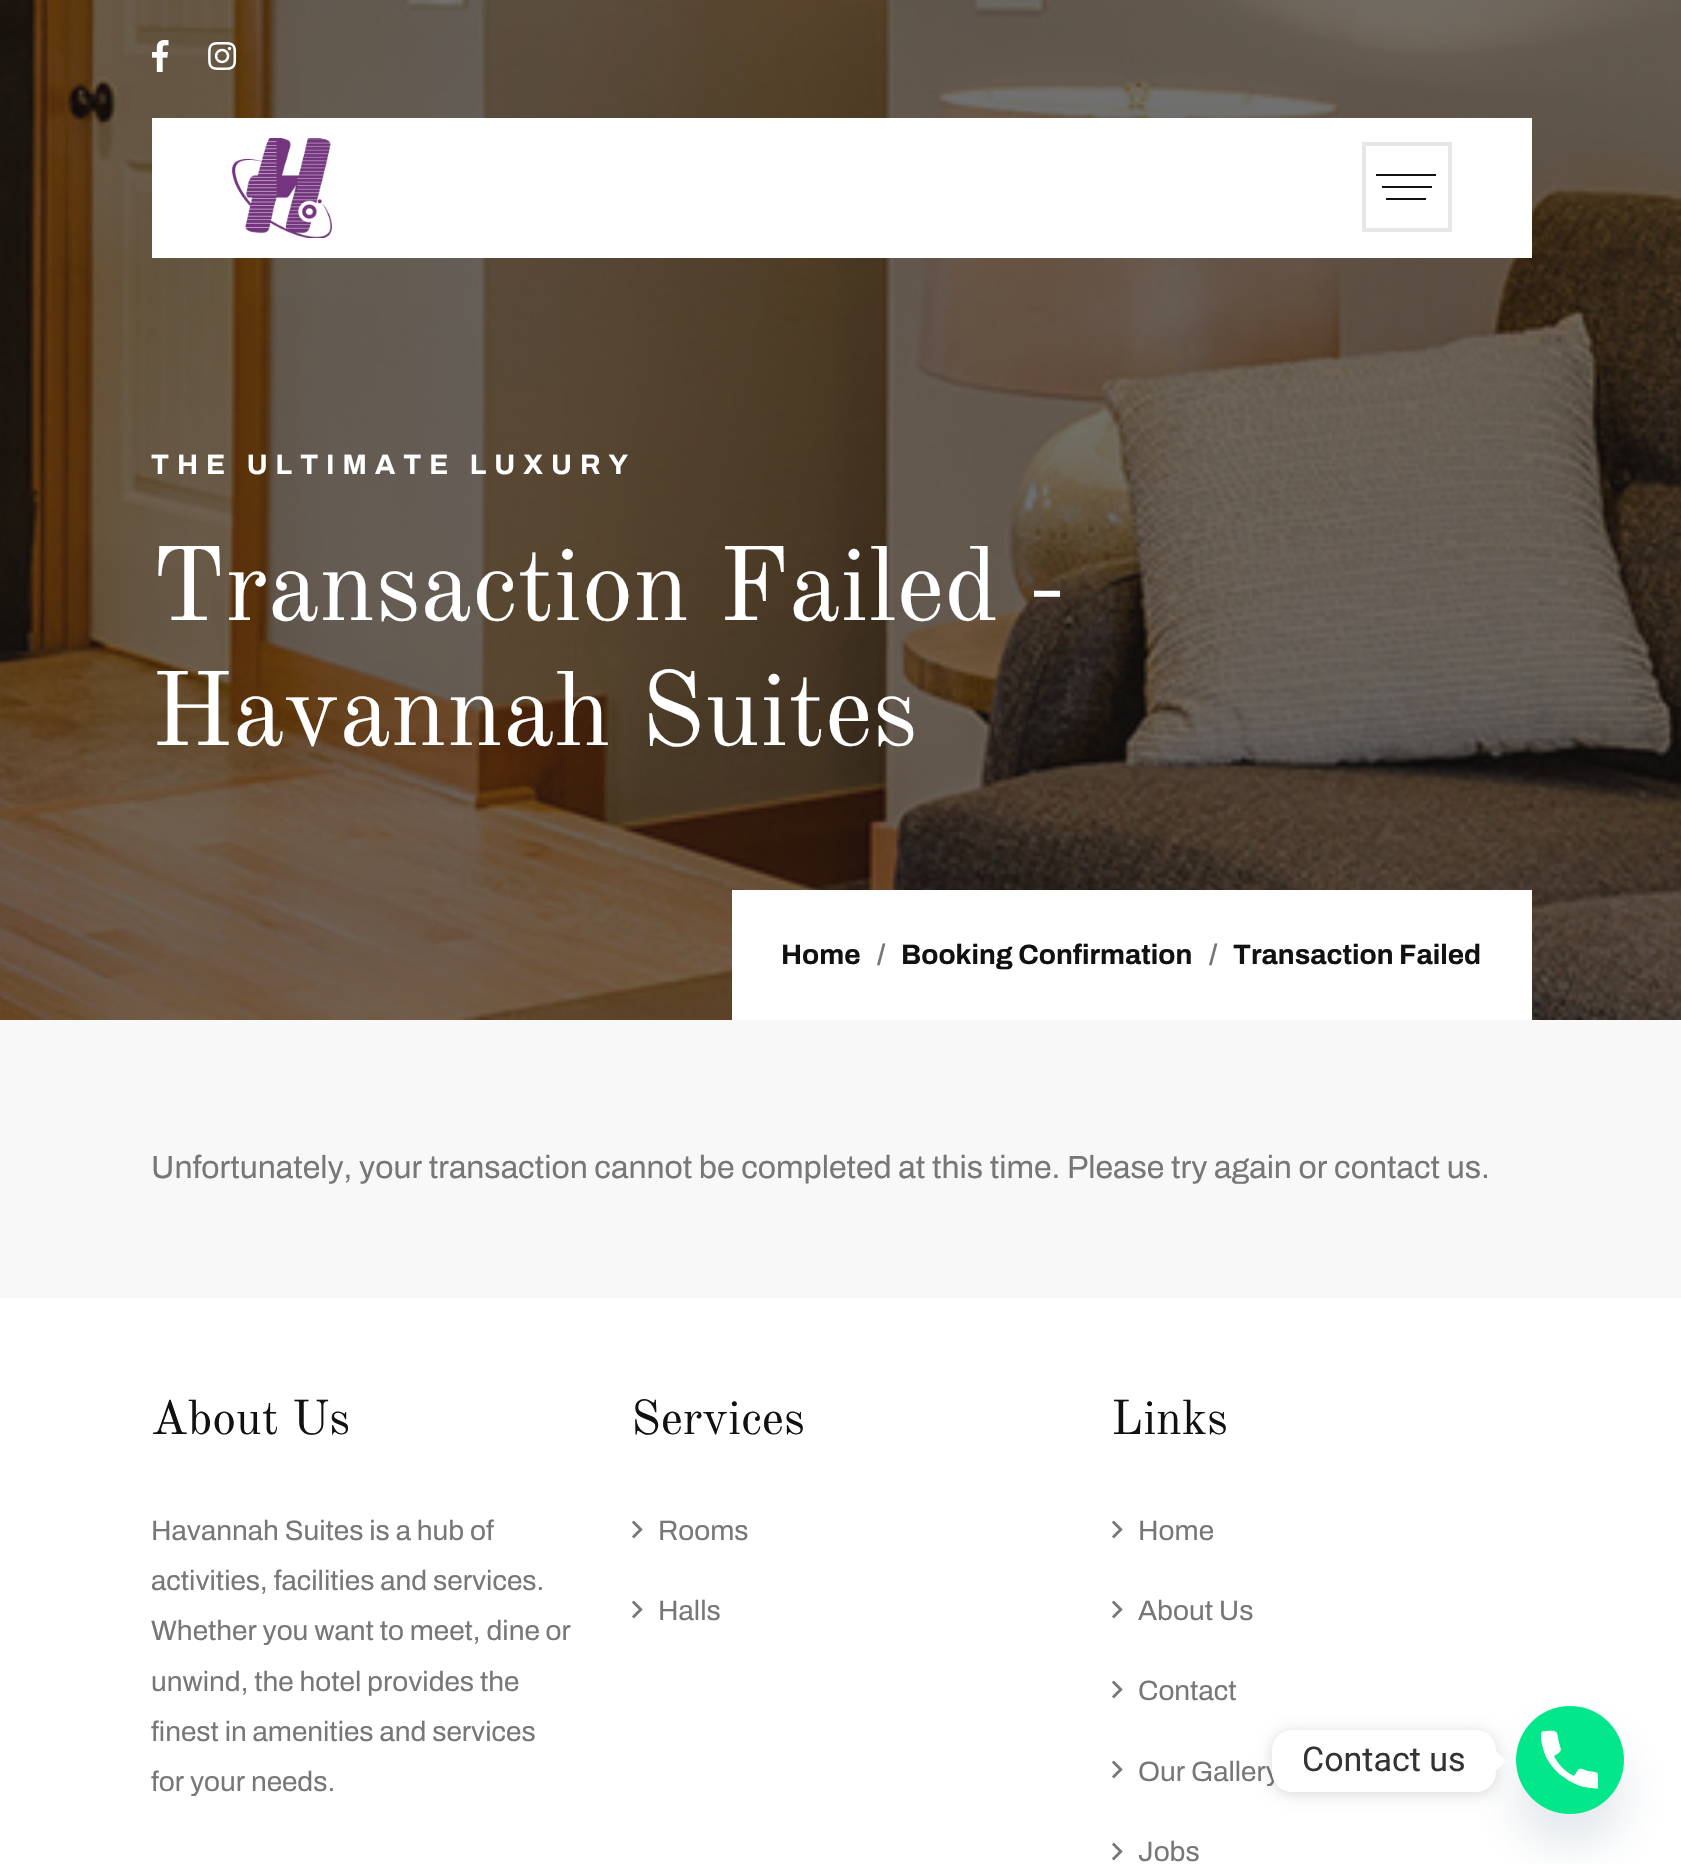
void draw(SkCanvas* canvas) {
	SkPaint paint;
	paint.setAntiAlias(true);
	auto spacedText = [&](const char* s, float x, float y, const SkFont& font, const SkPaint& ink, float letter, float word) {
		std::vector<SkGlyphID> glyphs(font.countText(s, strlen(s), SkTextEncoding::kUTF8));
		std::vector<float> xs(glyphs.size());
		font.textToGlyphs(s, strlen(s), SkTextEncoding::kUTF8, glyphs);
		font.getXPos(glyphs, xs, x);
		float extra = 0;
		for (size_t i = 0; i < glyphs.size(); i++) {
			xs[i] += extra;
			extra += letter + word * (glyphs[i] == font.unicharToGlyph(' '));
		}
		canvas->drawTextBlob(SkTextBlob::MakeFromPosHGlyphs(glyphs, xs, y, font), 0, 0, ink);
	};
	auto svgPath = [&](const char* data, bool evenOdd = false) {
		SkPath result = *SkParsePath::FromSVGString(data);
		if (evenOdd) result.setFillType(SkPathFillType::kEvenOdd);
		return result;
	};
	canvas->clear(0xfff8f8f8);
	canvas->drawImageRect(SkImages::DeferredFromEncodedData(SkData::MakeFromFileName("img4.png")), SkRect::MakeXYWH(0, 0, 1681, 1020), SkSamplingOptions());
	canvas->drawImageRect(SkImages::DeferredFromEncodedData(SkData::MakeFromFileName("img1.png")), SkRect::MakeXYWH(152, 40, 17, 32), SkSamplingOptions());
	canvas->drawImageRect(SkImages::DeferredFromEncodedData(SkData::MakeFromFileName("img2.png")), SkRect::MakeXYWH(208, 42, 29, 28), SkSamplingOptions());
	paint.setColor(0xffffffff);
	canvas->drawRect(SkRect::MakeXYWH(152, 118, 1380, 140), paint);
	canvas->drawImageRect(SkImages::DeferredFromEncodedData(SkData::MakeFromFileName("img3.png")), SkRect::MakeXYWH(232, 138, 100, 100), SkSamplingOptions());
	paint.setStroke(true);
	paint.setStrokeWidth(4);
	paint.setColor(0xffe7e7e7);
	canvas->drawRect(SkRect::MakeXYWH(1364, 144, 86, 86), paint);
	paint.setStroke(false);
	paint.setColor(0xff111111);
	canvas->drawRect(SkRect::MakeXYWH(1376, 174, 60, 2), paint);
	canvas->drawRect(SkRect::MakeXYWH(1382, 186, 50, 2), paint);
	canvas->drawRect(SkRect::MakeXYWH(1386, 198, 40, 2), paint);
	SkFont f1(fontMgr->matchFamilyStyle("Archivo", SkFontStyle::Bold()), 28);
	f1.setSubpixel(true);
	paint.setColor(0xffffffff);
	spacedText("THE ULTIMATE LUXURY", 151, 474, f1, paint, 8, 0);
	SkFont f2(fontMgr->matchFamilyStyle("Old Standard TT", SkFontStyle::Normal()), 104);
	f2.setSubpixel(true);
	canvas->drawString("Transaction Failed -", 151, 620, f2, paint);
	canvas->drawString("Havannah Suites", 151, 745, f2, paint);
	canvas->drawRect(SkRect::MakeXYWH(732, 890, 800, 130), paint);
	paint.setColor(0xff111111);
	canvas->drawString("Home", 781, 964, f1, paint);
	paint.setColor(0xff777777);
	canvas->drawString("/", 877, 964, f1, paint);
	paint.setColor(0xff111111);
	canvas->drawString("Booking Confirmation", 901, 964, f1, paint);
	paint.setColor(0xff777777);
	canvas->drawString("/", 1209, 964, f1, paint);
	paint.setColor(0xff111111);
	canvas->drawString("Transaction Failed", 1233, 964, f1, paint);
	SkFont f3(fontMgr->matchFamilyStyle("Archivo", SkFontStyle::Normal()), 32);
	f3.setSubpixel(true);
	paint.setColor(0xff777777);
	canvas->drawString("Unfortunately, your transaction cannot be completed at this time. Please try again or contact us.", 151, 1178, f3, paint);
	paint.setColor(0xffffffff);
	canvas->drawRect(SkRect::MakeXYWH(0, 1298, 1681, 566), paint);
	SkFont f4(fontMgr->matchFamilyStyle("Old Standard TT", SkFontStyle::Normal()), 48);
	f4.setSubpixel(true);
	paint.setColor(0xff111111);
	canvas->drawString("About Us", 151, 1434, f4, paint);
	SkFont f5(fontMgr->matchFamilyStyle("Archivo", SkFontStyle::Normal()), 28);
	f5.setSubpixel(true);
	paint.setColor(0xff777777);
	canvas->drawString("Havannah Suites is a hub of", 151, 1540, f5, paint);
	canvas->drawString("activities, facilities and services.", 151, 1590, f5, paint);
	canvas->drawString("Whether you want to meet, dine or", 151, 1640, f5, paint);
	canvas->drawString("unwind, the hotel provides the", 151, 1691, f5, paint);
	canvas->drawString("finest in amenities and services", 151, 1741, f5, paint);
	canvas->drawString("for your needs.", 151, 1791, f5, paint);
	paint.setColor(0xff111111);
	canvas->drawString("Services", 631, 1434, f4, paint);
	canvas->drawImageRect(SkImages::DeferredFromEncodedData(SkData::MakeFromFileName("img5.png")), SkRect::MakeXYWH(632, 1520, 11, 19), SkSamplingOptions());
	paint.setColor(0xff777777);
	canvas->drawString("Rooms", 658, 1540, f5, paint);
	canvas->drawImageRect(SkImages::DeferredFromEncodedData(SkData::MakeFromFileName("img5.png")), SkRect::MakeXYWH(632, 1600, 11, 19), SkSamplingOptions());
	canvas->drawString("Halls", 658, 1620, f5, paint);
	paint.setColor(0xff111111);
	canvas->drawString("Links", 1111, 1434, f4, paint);
	canvas->drawImageRect(SkImages::DeferredFromEncodedData(SkData::MakeFromFileName("img5.png")), SkRect::MakeXYWH(1112, 1520, 11, 19), SkSamplingOptions());
	paint.setColor(0xff777777);
	canvas->drawString("Home", 1138, 1540, f5, paint);
	canvas->drawImageRect(SkImages::DeferredFromEncodedData(SkData::MakeFromFileName("img5.png")), SkRect::MakeXYWH(1112, 1600, 11, 19), SkSamplingOptions());
	canvas->drawString("About Us", 1138, 1620, f5, paint);
	canvas->drawImageRect(SkImages::DeferredFromEncodedData(SkData::MakeFromFileName("img5.png")), SkRect::MakeXYWH(1112, 1680, 11, 19), SkSamplingOptions());
	canvas->drawString("Contact", 1138, 1700, f5, paint);
	canvas->drawImageRect(SkImages::DeferredFromEncodedData(SkData::MakeFromFileName("img5.png")), SkRect::MakeXYWH(1112, 1760, 11, 19), SkSamplingOptions());
	canvas->drawString("Our Gallery", 1138, 1781, f5, paint);
	canvas->drawImageRect(SkImages::DeferredFromEncodedData(SkData::MakeFromFileName("img5.png")), SkRect::MakeXYWH(1112, 1842, 11, 19), SkSamplingOptions());
	canvas->drawString("Jobs", 1138, 1861, f5, paint);
	paint.setColor(0x2949687e);
	paint.setMaskFilter(SkMaskFilter::MakeBlur(kNormal_SkBlurStyle, 24));
	canvas->drawRoundRect(SkRect::MakeXYWH(1516, 1738, 108, 108), 54, 54, paint);
	paint.setMaskFilter(nullptr);
	paint.setColor(0xff03e78b);
	canvas->drawCircle(1570, 1760, 54, paint);
	paint.setColor(0x26000000);
	paint.setMaskFilter(SkMaskFilter::MakeBlur(kNormal_SkBlurStyle, 7.5));
	canvas->drawRoundRect(SkRect::MakeXYWH(1272, 1732, 224, 62), 20, 20, paint);
	paint.setMaskFilter(nullptr);
	paint.setColor(0xffffffff);
	canvas->drawRoundRect(SkRect::MakeXYWH(1272, 1730, 224, 62), 20, 20, paint);
	SkFont f6(fontMgr->matchFamilyStyle("Roboto", SkFontStyle::Normal()), 34);
	f6.setSubpixel(true);
	paint.setColor(0xff333333);
	canvas->drawString("Contact us", 1302, 1771, f6, paint);
	paint.setColor(0xffffffff);
	canvas->drawPath(svgPath("M1496 1771V1751L1506 1761Z"), paint);
	canvas->drawPath(svgPath("M1595 1772L1588 1771C1585 1770 1580 1767 1578 1770L1574 1776C1565 1772 1558 1764 1554 1756C1562 1751 1562 1752 1559 1743L1557 1733C1555 1730 1551 1731 1548 1731C1540 1731 1541 1731 1541 1739C1542 1746 1544 1752 1546 1757C1551 1766 1557 1773 1565 1778C1573 1784 1583 1788 1593 1788C1595 1789 1597 1789 1598 1788V1775C1598 1773 1596 1772 1595 1772Z"), paint);
}
